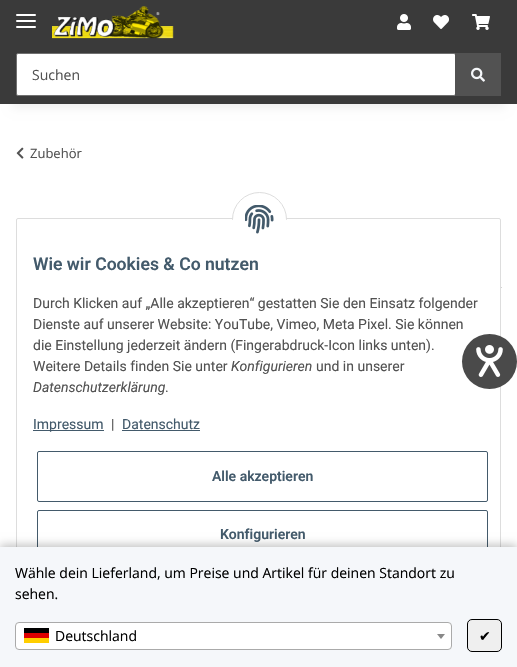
void draw(SkCanvas* canvas) {
	SkPaint paint;
	paint.setAntiAlias(true);
	auto svgPath = [&](const char* data, bool evenOdd = false) {
		SkPath result = *SkParsePath::FromSVGString(data);
		if (evenOdd) result.setFillType(SkPathFillType::kEvenOdd);
		return result;
	};
	canvas->clear(0xffffffff);
	paint.setColor(0x0f000000);
	paint.setMaskFilter(SkMaskFilter::MakeBlur(kNormal_SkBlurStyle, 4.5));
	canvas->drawRect(SkRect::MakeXYWH(12, 28, 493, 80), paint);
	paint.setMaskFilter(nullptr);
	paint.setColor(0xff3a3a3a);
	canvas->drawRect(SkRect::MakeXYWH(0, 0, 517, 104), paint);
	paint.setColor(0xffffffff);
	canvas->drawRoundRect(SkRect::MakeXYWH(16, 20, 20, 2), 1, 1, paint);
	canvas->drawRoundRect(SkRect::MakeXYWH(16, 14, 20, 2), 1, 1, paint);
	canvas->drawRoundRect(SkRect::MakeXYWH(16, 26, 20, 2), 1, 1, paint);
	canvas->drawImageRect(SkImages::DeferredFromEncodedData(SkData::MakeFromFileName("img1.png")), SkRect::MakeXYWH(52, 6, 122, 33), SkSamplingOptions());
	canvas->drawImageRect(SkImages::DeferredFromEncodedData(SkData::MakeFromFileName("img2.png")), SkRect::MakeXYWH(397, 14, 14, 16), SkSamplingOptions());
	canvas->drawImageRect(SkImages::DeferredFromEncodedData(SkData::MakeFromFileName("img3.png")), SkRect::MakeXYWH(433, 15, 16, 14), SkSamplingOptions());
	canvas->drawImageRect(SkImages::DeferredFromEncodedData(SkData::MakeFromFileName("img4.png")), SkRect::MakeXYWH(472, 14, 18, 16), SkSamplingOptions());
	canvas->drawRoundRect(SkRect::MakeXYWH(16.5, 53.5, 439, 42), 1.5, 1.5, paint);
	paint.setStroke(true);
	paint.setStrokeWidth(1);
	paint.setColor(0xff707070);
	canvas->drawRoundRect(SkRect::MakeXYWH(16.5, 53.5, 439, 42), 1.5, 1.5, paint);
	SkFont f1(fontMgr->matchFamilyStyle("Open Sans", SkFontStyle::Normal()), 14);
	f1.setSubpixel(true);
	paint.setStroke(false);
	paint.setColor(0xff525252);
	canvas->drawString("Suchen", 32, 80, f1, paint);
	canvas->drawRect(SkRect::MakeXYWH(455, 53, 46, 43), paint);
	canvas->drawImageRect(SkImages::DeferredFromEncodedData(SkData::MakeFromFileName("img5.png")), SkRect::MakeXYWH(471, 67, 14, 15), SkSamplingOptions());
	canvas->drawImageRect(SkImages::DeferredFromEncodedData(SkData::MakeFromFileName("img6.png")), SkRect::MakeXYWH(16, 147, 8, 12), SkSamplingOptions());
	SkFont f2(fontMgr->matchFamilyStyle("Open Sans", SkFontStyle::Normal()), 13);
	f2.setSubpixel(true);
	canvas->drawString("Zubehör", 30, 158, f2, paint);
	canvas->drawImageRect(SkImages::DeferredFromEncodedData(SkData::MakeFromFileName("img7.png")), SkRect::MakeXYWH(501, 287, 1, 1), SkSamplingOptions());
	paint.setStroke(true);
	paint.setColor(0xffdddddd);
	canvas->drawRoundRect(SkRect::MakeXYWH(16.5, 218.5, 484, 416), 1.5, 1.5, paint);
	paint.setStroke(false);
	paint.setColor(0xffffffff);
	canvas->drawCircle(259.5, 219.5, 27, paint);
	paint.setStroke(true);
	paint.setColor(0xffdddddd);
	canvas->drawCircle(259.5, 219.5, 27, paint);
	paint.setStroke(false);
	paint.setColor(0xffffffff);
	canvas->drawRect(SkRect::MakeXYWH(232, 220, 55, 27), paint);
	canvas->drawImageRect(SkImages::DeferredFromEncodedData(SkData::MakeFromFileName("img8.png")), SkRect::MakeXYWH(245, 205, 29, 29), SkSamplingOptions());
	SkFont f3(fontMgr->matchFamilyStyle("Roboto", SkFontStyle(600, SkFontStyle::kNormal_Width, SkFontStyle::kUpright_Slant)), 17.6);
	f3.setSubpixel(true);
	paint.setColor(0xff435a6b);
	canvas->drawString("Wie wir Cookies & Co nutzen", 33, 270, f3, paint);
	SkFont f4(fontMgr->matchFamilyStyle("Roboto", SkFontStyle::Normal()), 14);
	f4.setSubpixel(true);
	paint.setColor(0xff525252);
	canvas->drawString("Durch Klicken auf „Alle akzeptieren“ gestatten Sie den Einsatz folgender", 33, 308, f4, paint);
	canvas->drawString("Dienste auf unserer Website: YouTube, Vimeo, Meta Pixel. Sie können", 33, 329, f4, paint);
	canvas->drawString("die Einstellung jederzeit ändern (Fingerabdruck-Icon links unten).", 33, 350, f4, paint);
	canvas->drawString("Weitere Details finden Sie unter", 33, 371, f4, paint);
	SkFont f5(fontMgr->matchFamilyStyle("Roboto", SkFontStyle::Italic()), 14);
	f5.setSubpixel(true);
	canvas->drawString("Konfigurieren", 231, 371, f5, paint);
	canvas->drawString("und in unserer", 316, 371, f4, paint);
	canvas->drawString("Datenschutzerklärung", 33, 392, f5, paint);
	canvas->drawString(".", 165, 392, f4, paint);
	paint.setColor(0xff435a6b);
	canvas->drawRect(SkRect::MakeXYWH(33, 430, 71, 1), paint);
	canvas->drawString("Impressum", 33, 429, f4, paint);
	paint.setColor(0xff525252);
	canvas->drawString("|", 111, 429, f4, paint);
	paint.setColor(0xff435a6b);
	canvas->drawString("Datenschutz", 122, 429, f4, paint);
	canvas->drawRect(SkRect::MakeXYWH(122, 430, 78, 1), paint);
	paint.setStroke(true);
	canvas->drawRoundRect(SkRect::MakeXYWH(37.5, 451.5, 450, 50), 1.5, 1.5, paint);
	SkFont f6(fontMgr->matchFamilyStyle("Roboto", SkFontStyle(600, SkFontStyle::kNormal_Width, SkFontStyle::kUpright_Slant)), 14);
	f6.setSubpixel(true);
	paint.setStroke(false);
	canvas->drawString("Alle akzeptieren", 212, 481, f6, paint);
	paint.setStroke(true);
	canvas->drawRoundRect(SkRect::MakeXYWH(37.5, 510.5, 450, 49), 1.5, 1.5, paint);
	paint.setStroke(false);
	canvas->drawString("Konfigurieren", 220, 539, f6, paint);
	paint.setColor(0xff4a4a4a);
	canvas->drawCircle(489.5, 361.5, 27.5, paint);
	canvas->drawImageRect(SkImages::DeferredFromEncodedData(SkData::MakeFromFileName("img9.png")), SkRect::MakeXYWH(476, 345, 27, 32), SkSamplingOptions());
	paint.setColor(0x40000000);
	paint.setMaskFilter(SkMaskFilter::MakeBlur(kNormal_SkBlurStyle, 4.5));
	canvas->drawRect(SkRect::MakeXYWH(0, 545, 517, 120), paint);
	paint.setMaskFilter(nullptr);
	paint.setColor(0xfff5f7fa);
	canvas->drawRect(SkRect::MakeXYWH(0, 547, 517, 120), paint);
	paint.setColor(0xff000000);
	canvas->drawString("Wähle dein Lieferland, um Preise und Artikel für deinen Standort zu", 15, 578, f1, paint);
	canvas->drawString("sehen.", 15, 599, f1, paint);
	paint.setColor(0xffffffff);
	canvas->drawRoundRect(SkRect::MakeXYWH(15.5, 622.5, 436, 27), 3.5, 3.5, paint);
	paint.setStroke(true);
	paint.setColor(0xffaaaaaa);
	canvas->drawRoundRect(SkRect::MakeXYWH(15.5, 622.5, 436, 27), 3.5, 3.5, paint);
	paint.setStroke(false);
	paint.setColor(0xff000000);
	canvas->drawRect(SkRect::MakeXYWH(24, 628, 25, 5), paint);
	paint.setColor(0xffdd0000);
	canvas->drawRect(SkRect::MakeXYWH(24, 633, 25, 5), paint);
	paint.setColor(0xffffce00);
	canvas->drawRect(SkRect::MakeXYWH(24, 638, 25, 5), paint);
	paint.setColor(0xff000000);
	canvas->drawString("Deutschland", 55, 641, f1, paint);
	paint.setColor(0xff888888);
	canvas->drawPath(svgPath("M437 634H445L441 639Z"), paint);
	paint.setColor(0xffefefef);
	canvas->drawRoundRect(SkRect::MakeXYWH(467.5, 619.5, 34, 32), 4.5, 4.5, paint);
	paint.setStroke(true);
	paint.setColor(0xff000000);
	canvas->drawRoundRect(SkRect::MakeXYWH(467.5, 619.5, 34, 32), 4.5, 4.5, paint);
	SkFont f7(fontMgr->matchFamilyStyle("DejaVu Sans", SkFontStyle::Normal()), 14);
	f7.setSubpixel(true);
	paint.setStroke(false);
	canvas->drawString("✔", 479, 641, f7, paint);
}
